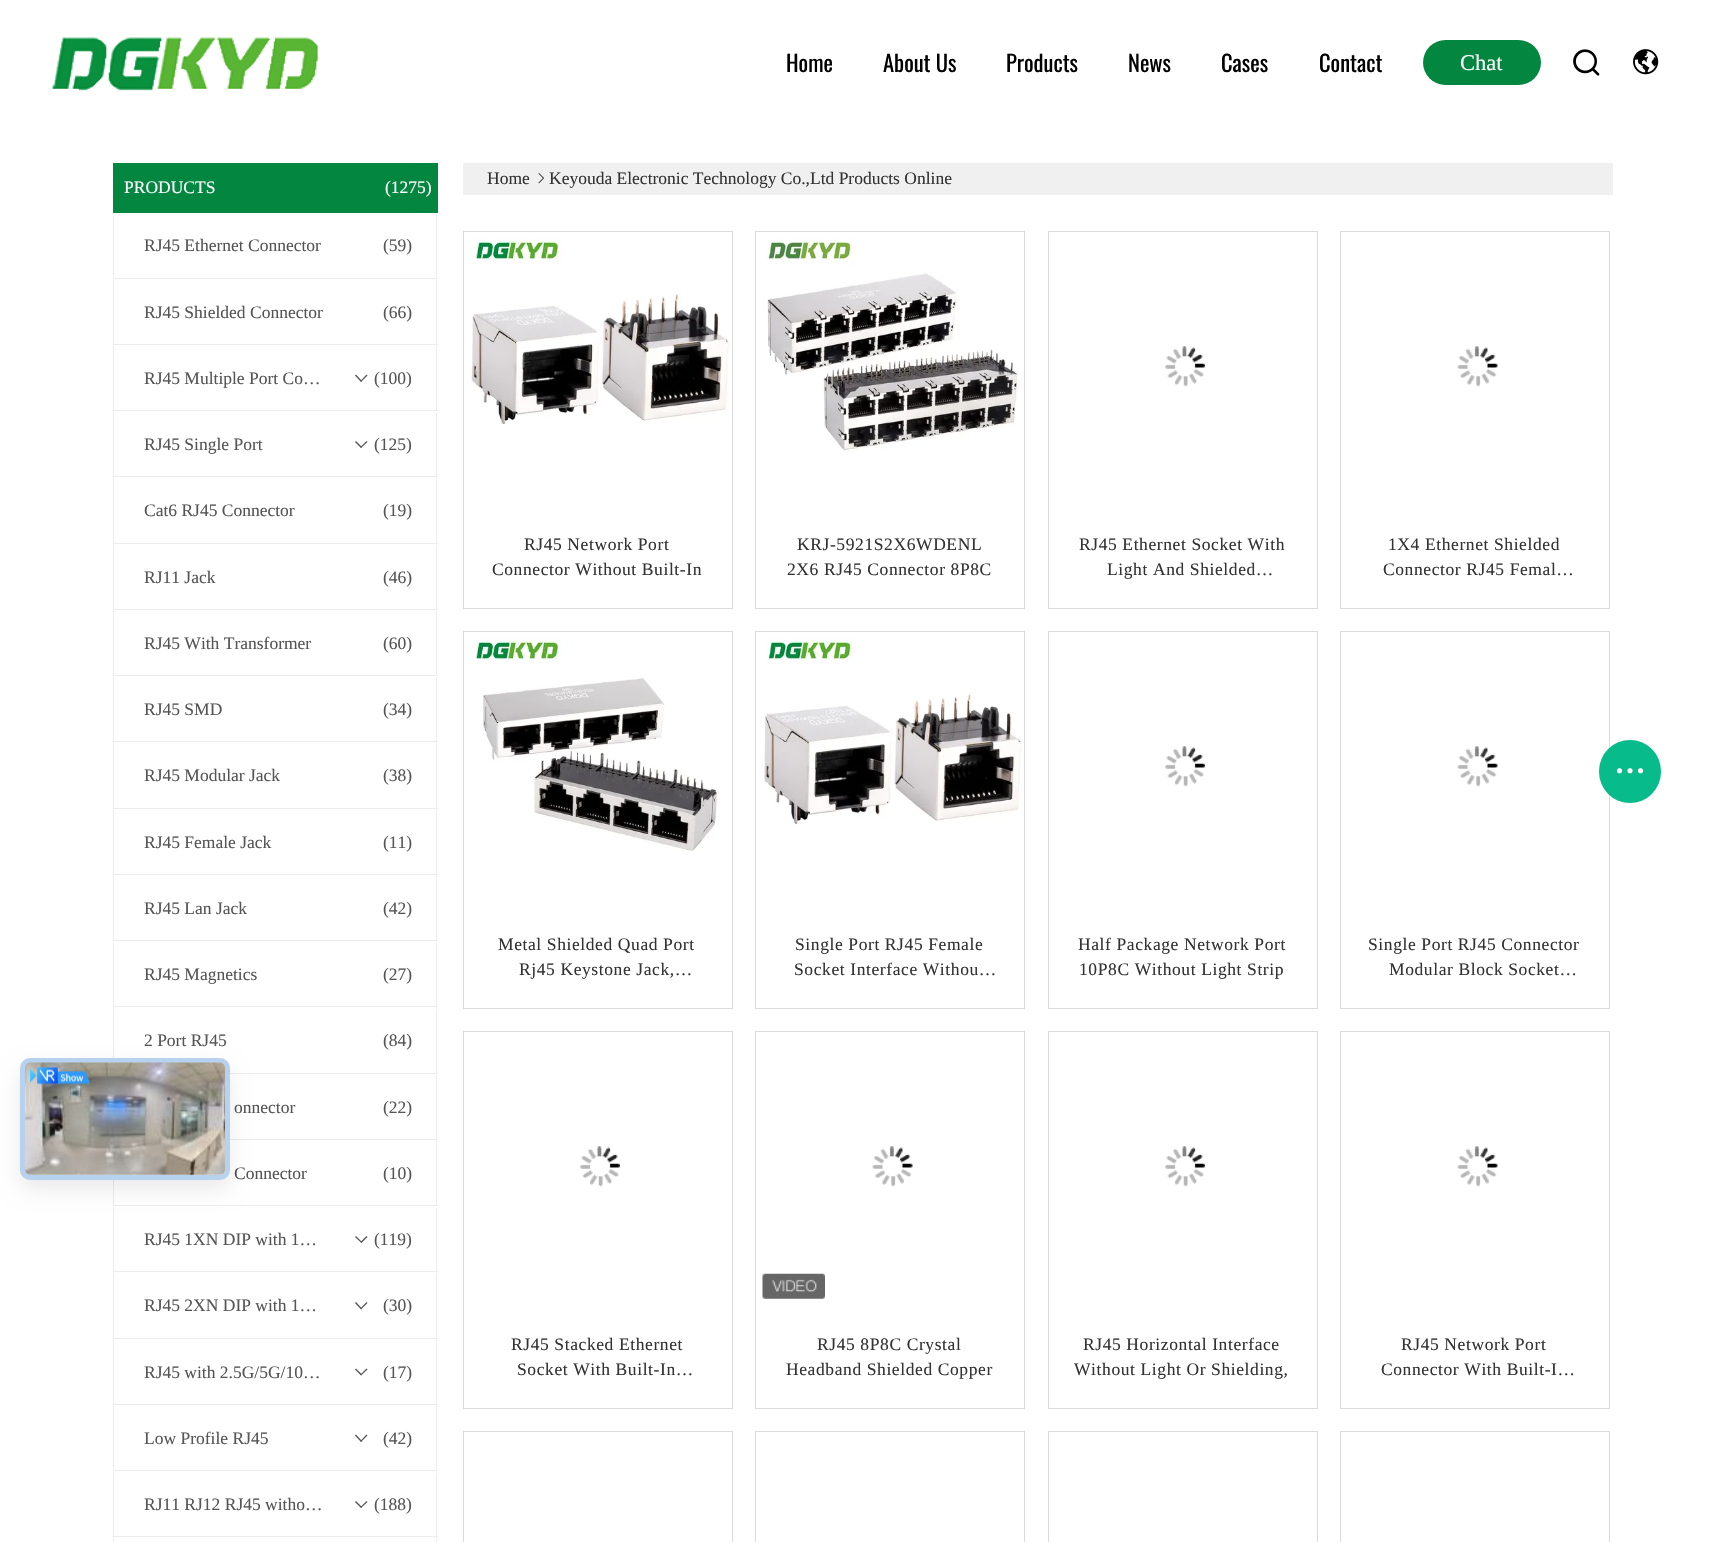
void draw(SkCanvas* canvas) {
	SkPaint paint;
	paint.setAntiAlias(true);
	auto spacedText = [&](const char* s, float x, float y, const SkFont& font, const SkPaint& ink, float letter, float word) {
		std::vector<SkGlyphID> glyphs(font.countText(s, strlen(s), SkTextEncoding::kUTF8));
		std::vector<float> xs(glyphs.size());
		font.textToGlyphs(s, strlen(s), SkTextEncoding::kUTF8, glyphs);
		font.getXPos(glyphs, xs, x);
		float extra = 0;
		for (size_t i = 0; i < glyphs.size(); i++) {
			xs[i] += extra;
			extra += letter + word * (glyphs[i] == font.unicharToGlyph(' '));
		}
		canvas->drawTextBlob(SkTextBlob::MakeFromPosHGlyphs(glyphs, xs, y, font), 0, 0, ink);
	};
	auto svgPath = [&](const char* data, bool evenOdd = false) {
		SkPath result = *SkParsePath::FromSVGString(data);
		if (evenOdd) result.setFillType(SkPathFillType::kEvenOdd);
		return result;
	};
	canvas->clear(0xffffffff);
	canvas->drawImageRect(SkImages::DeferredFromEncodedData(SkData::MakeFromFileName("img1.png")), SkRect::MakeXYWH(52, 37, 266, 54), SkSamplingOptions());
	SkFont f1(fontMgr->matchFamilyStyle("Oswald", SkFontStyle::Normal()), 22.5);
	f1.setSubpixel(true);
	paint.setColor(0xff000000);
	canvas->drawString("Home", 786, 72, f1, paint);
	canvas->drawString("About Us", 883, 72, f1, paint);
	canvas->drawString("Products", 1006, 72, f1, paint);
	canvas->drawString("News", 1128, 72, f1, paint);
	canvas->drawString("Cases", 1221, 72, f1, paint);
	canvas->drawString("Contact", 1319, 72, f1, paint);
	paint.setColor(0xff038740);
	canvas->drawRoundRect(SkRect::MakeXYWH(1423, 40, 118, 45), 22.5, 22.5, paint);
	SkFont f2(fontMgr->matchFamilyStyle("Liberation Serif", SkFontStyle::Normal()), 22.5);
	f2.setSubpixel(true);
	paint.setColor(0xffffffff);
	canvas->drawString("Chat", 1460, 70, f2, paint);
	canvas->drawImageRect(SkImages::DeferredFromEncodedData(SkData::MakeFromFileName("img2.png")), SkRect::MakeXYWH(1573, 49, 27, 27), SkSamplingOptions());
	canvas->drawImageRect(SkImages::DeferredFromEncodedData(SkData::MakeFromFileName("img3.png")), SkRect::MakeXYWH(1633, 49, 26, 26), SkSamplingOptions());
	paint.setColor(0xff038740);
	canvas->drawRect(SkRect::MakeXYWH(113, 163, 325, 50), paint);
	SkFont f3(fontMgr->matchFamilyStyle("Liberation Serif", SkFontStyle::Normal()), 17.5);
	f3.setSubpixel(true);
	paint.setColor(0xffffffff);
	canvas->drawString("PRODUCTS", 124, 193, f3, paint);
	canvas->drawString("(1275)", 385, 193, f3, paint);
	paint.setColor(0xffececec);
	canvas->drawRect(SkRect::MakeXYWH(436, 214, 1, 65), paint);
	canvas->drawRect(SkRect::MakeXYWH(113, 278, 325, 1), paint);
	canvas->drawRect(SkRect::MakeXYWH(113, 214, 1, 65), paint);
	paint.setColor(0xff555555);
	canvas->drawString("RJ45 Ethernet Connector", 144, 251, f3, paint);
	canvas->drawString("(59)", 383, 251, f3, paint);
	paint.setColor(0xffececec);
	canvas->drawRect(SkRect::MakeXYWH(436, 280, 1, 65), paint);
	canvas->drawRect(SkRect::MakeXYWH(113, 344, 325, 1), paint);
	canvas->drawRect(SkRect::MakeXYWH(113, 280, 1, 65), paint);
	paint.setColor(0xff555555);
	canvas->drawString("RJ45 Shielded Connector", 144, 318, f3, paint);
	canvas->drawString("(66)", 383, 318, f3, paint);
	paint.setColor(0xffececec);
	canvas->drawRect(SkRect::MakeXYWH(436, 346, 1, 65), paint);
	canvas->drawRect(SkRect::MakeXYWH(113, 410, 325, 1), paint);
	canvas->drawRect(SkRect::MakeXYWH(113, 346, 1, 65), paint);
	paint.setColor(0xff555555);
	canvas->drawString("RJ45 Multiple Port Co…", 144, 384, f3, paint);
	canvas->drawString("(100)", 374, 384, f3, paint);
	canvas->drawPath(svgPath("M361 382L355 375.5L356 374.5L362 381Z"), paint);
	canvas->drawPath(svgPath("M361 382L360.5 381L366.5 374.5L367.5 375.5Z"), paint);
	paint.setColor(0xffececec);
	canvas->drawRect(SkRect::MakeXYWH(436, 413, 1, 65), paint);
	canvas->drawRect(SkRect::MakeXYWH(113, 476, 325, 1), paint);
	canvas->drawRect(SkRect::MakeXYWH(113, 413, 1, 65), paint);
	paint.setColor(0xff555555);
	canvas->drawString("RJ45 Single Port", 144, 450, f3, paint);
	canvas->drawString("(125)", 374, 450, f3, paint);
	canvas->drawPath(svgPath("M361 448L355 442L356 441L362 447Z"), paint);
	canvas->drawPath(svgPath("M361 448L360.5 447L366.5 441L367.5 442Z"), paint);
	paint.setColor(0xffececec);
	canvas->drawRect(SkRect::MakeXYWH(436, 479, 1, 65), paint);
	canvas->drawRect(SkRect::MakeXYWH(113, 543, 325, 1), paint);
	canvas->drawRect(SkRect::MakeXYWH(113, 479, 1, 65), paint);
	paint.setColor(0xff555555);
	canvas->drawString("Cat6 RJ45 Connector", 144, 516, f3, paint);
	canvas->drawString("(19)", 383, 516, f3, paint);
	paint.setColor(0xffececec);
	canvas->drawRect(SkRect::MakeXYWH(436, 545, 1, 65), paint);
	canvas->drawRect(SkRect::MakeXYWH(113, 609, 325, 1), paint);
	canvas->drawRect(SkRect::MakeXYWH(113, 545, 1, 65), paint);
	paint.setColor(0xff555555);
	canvas->drawString("RJ11 Jack", 144, 583, f3, paint);
	canvas->drawString("(46)", 383, 583, f3, paint);
	paint.setColor(0xffececec);
	canvas->drawRect(SkRect::MakeXYWH(436, 611, 1, 65), paint);
	canvas->drawRect(SkRect::MakeXYWH(113, 675, 325, 1), paint);
	canvas->drawRect(SkRect::MakeXYWH(113, 611, 1, 65), paint);
	paint.setColor(0xff555555);
	canvas->drawString("RJ45 With Transformer", 144, 649, f3, paint);
	canvas->drawString("(60)", 383, 649, f3, paint);
	paint.setColor(0xffececec);
	canvas->drawRect(SkRect::MakeXYWH(436, 678, 1, 65), paint);
	canvas->drawRect(SkRect::MakeXYWH(113, 741, 325, 1), paint);
	canvas->drawRect(SkRect::MakeXYWH(113, 678, 1, 65), paint);
	paint.setColor(0xff555555);
	canvas->drawString("RJ45 SMD", 144, 715, f3, paint);
	canvas->drawString("(34)", 383, 715, f3, paint);
	paint.setColor(0xffececec);
	canvas->drawRect(SkRect::MakeXYWH(436, 744, 1, 65), paint);
	canvas->drawRect(SkRect::MakeXYWH(113, 808, 325, 1), paint);
	canvas->drawRect(SkRect::MakeXYWH(113, 744, 1, 65), paint);
	paint.setColor(0xff555555);
	canvas->drawString("RJ45 Modular Jack", 144, 781, f3, paint);
	canvas->drawString("(38)", 383, 781, f3, paint);
	paint.setColor(0xffececec);
	canvas->drawRect(SkRect::MakeXYWH(436, 810, 1, 65), paint);
	canvas->drawRect(SkRect::MakeXYWH(113, 874, 325, 1), paint);
	canvas->drawRect(SkRect::MakeXYWH(113, 810, 1, 65), paint);
	paint.setColor(0xff555555);
	canvas->drawString("RJ45 Female Jack", 144, 848, f3, paint);
	canvas->drawString("(11)", 383, 848, f3, paint);
	paint.setColor(0xffececec);
	canvas->drawRect(SkRect::MakeXYWH(436, 876, 1, 65), paint);
	canvas->drawRect(SkRect::MakeXYWH(113, 940, 325, 1), paint);
	canvas->drawRect(SkRect::MakeXYWH(113, 876, 1, 65), paint);
	paint.setColor(0xff555555);
	canvas->drawString("RJ45 Lan Jack", 144, 914, f3, paint);
	canvas->drawString("(42)", 383, 914, f3, paint);
	paint.setColor(0xffececec);
	canvas->drawRect(SkRect::MakeXYWH(436, 943, 1, 65), paint);
	canvas->drawRect(SkRect::MakeXYWH(113, 1006, 325, 1), paint);
	canvas->drawRect(SkRect::MakeXYWH(113, 943, 1, 65), paint);
	paint.setColor(0xff555555);
	canvas->drawString("RJ45 Magnetics", 144, 980, f3, paint);
	canvas->drawString("(27)", 383, 980, f3, paint);
	paint.setColor(0xffececec);
	canvas->drawRect(SkRect::MakeXYWH(436, 1009, 1, 65), paint);
	canvas->drawRect(SkRect::MakeXYWH(230, 1073, 208, 1), paint);
	canvas->drawRect(SkRect::MakeXYWH(113, 1009, 1, 49), paint);
	paint.setColor(0xff555555);
	canvas->drawString("2 Port RJ45", 144, 1046, f3, paint);
	canvas->drawString("(84)", 383, 1046, f3, paint);
	paint.setColor(0xffececec);
	canvas->drawRect(SkRect::MakeXYWH(436, 1075, 1, 65), paint);
	canvas->drawRect(SkRect::MakeXYWH(230, 1139, 208, 1), paint);
	paint.setColor(0xff555555);
	canvas->drawString("onnector", 234, 1113, f3, paint);
	canvas->drawString("(22)", 383, 1113, f3, paint);
	paint.setColor(0xffececec);
	canvas->drawRect(SkRect::MakeXYWH(436, 1141, 1, 65), paint);
	canvas->drawRect(SkRect::MakeXYWH(113, 1205, 325, 1), paint);
	canvas->drawRect(SkRect::MakeXYWH(113, 1180, 1, 26), paint);
	paint.setColor(0xff555555);
	canvas->drawString("Connector", 234, 1179, f3, paint);
	canvas->drawString("(10)", 383, 1179, f3, paint);
	paint.setColor(0xffececec);
	canvas->drawRect(SkRect::MakeXYWH(436, 1208, 1, 65), paint);
	canvas->drawRect(SkRect::MakeXYWH(113, 1271, 325, 1), paint);
	canvas->drawRect(SkRect::MakeXYWH(113, 1208, 1, 65), paint);
	paint.setColor(0xff555555);
	canvas->drawString("RJ45 1XN DIP with 1…", 144, 1245, f3, paint);
	canvas->drawString("(119)", 374, 1245, f3, paint);
	canvas->drawPath(svgPath("M361.5 1243L355 1237L356 1236L362 1242Z"), paint);
	canvas->drawPath(svgPath("M361.5 1243L360.5 1242L366.5 1236L367.5 1237Z"), paint);
	paint.setColor(0xffececec);
	canvas->drawRect(SkRect::MakeXYWH(436, 1274, 1, 65), paint);
	canvas->drawRect(SkRect::MakeXYWH(113, 1338, 325, 1), paint);
	canvas->drawRect(SkRect::MakeXYWH(113, 1274, 1, 65), paint);
	paint.setColor(0xff555555);
	canvas->drawString("RJ45 2XN DIP with 1…", 144, 1311, f3, paint);
	canvas->drawString("(30)", 383, 1311, f3, paint);
	canvas->drawPath(svgPath("M361 1309.5L355 1303L356 1302L362 1308.5Z"), paint);
	canvas->drawPath(svgPath("M361 1309.5L360.5 1308.5L366.5 1302L367.5 1303Z"), paint);
	paint.setColor(0xffececec);
	canvas->drawRect(SkRect::MakeXYWH(436, 1340, 1, 65), paint);
	canvas->drawRect(SkRect::MakeXYWH(113, 1404, 325, 1), paint);
	canvas->drawRect(SkRect::MakeXYWH(113, 1340, 1, 65), paint);
	paint.setColor(0xff555555);
	canvas->drawString("RJ45 with 2.5G/5G/10…", 144, 1378, f3, paint);
	canvas->drawString("(17)", 383, 1378, f3, paint);
	canvas->drawPath(svgPath("M361 1375.5L355 1369.5L356 1368.5L362 1374.5Z"), paint);
	canvas->drawPath(svgPath("M361 1375.5L360.5 1374.5L366.5 1368.5L367.5 1369.5Z"), paint);
	paint.setColor(0xffececec);
	canvas->drawRect(SkRect::MakeXYWH(436, 1406, 1, 65), paint);
	canvas->drawRect(SkRect::MakeXYWH(113, 1470, 325, 1), paint);
	canvas->drawRect(SkRect::MakeXYWH(113, 1406, 1, 65), paint);
	paint.setColor(0xff555555);
	canvas->drawString("Low Profile RJ45", 144, 1444, f3, paint);
	canvas->drawString("(42)", 383, 1444, f3, paint);
	canvas->drawPath(svgPath("M361 1442L355 1435.5L356 1434.5L362 1441Z"), paint);
	canvas->drawPath(svgPath("M361 1442L360.5 1441L366.5 1434.5L367.5 1435.5Z"), paint);
	paint.setColor(0xffececec);
	canvas->drawRect(SkRect::MakeXYWH(436, 1473, 1, 65), paint);
	canvas->drawRect(SkRect::MakeXYWH(113, 1536, 325, 1), paint);
	canvas->drawRect(SkRect::MakeXYWH(113, 1473, 1, 65), paint);
	paint.setColor(0xff555555);
	canvas->drawString("RJ11 RJ12 RJ45 witho…", 144, 1510, f3, paint);
	canvas->drawString("(188)", 374, 1510, f3, paint);
	canvas->drawPath(svgPath("M361 1508L355 1502L356 1501L362 1507Z"), paint);
	canvas->drawPath(svgPath("M361 1508L360.5 1507L366.5 1501L367.5 1502Z"), paint);
	paint.setColor(0xffececec);
	canvas->drawRect(SkRect::MakeXYWH(436, 1539, 1, 3), paint);
	canvas->drawRect(SkRect::MakeXYWH(113, 1539, 1, 3), paint);
	paint.setColor(0xfff0f0f0);
	canvas->drawRect(SkRect::MakeXYWH(463, 163, 1150, 32), paint);
	paint.setColor(0xff333333);
	canvas->drawString("Home", 487, 184, f3, paint);
	canvas->drawImageRect(SkImages::DeferredFromEncodedData(SkData::MakeFromFileName("img4.png")), SkRect::MakeXYWH(538, 173, 6, 11), SkSamplingOptions());
	canvas->drawString("Keyouda Electronic Technology Co.,Ltd Products Online", 549, 184, f3, paint);
	paint.setStroke(true);
	paint.setStrokeWidth(1);
	paint.setColor(0xffdcdbdb);
	canvas->drawRect(SkRect::MakeXYWH(463.5, 231.5, 269, 377), paint);
	canvas->drawImageRect(SkImages::DeferredFromEncodedData(SkData::MakeFromFileName("img5.png")), SkRect::MakeXYWH(471, 238, 260, 187), SkSamplingOptions());
	paint.setStroke(false);
	paint.setColor(0xff333333);
	spacedText("RJ45 Network Port", 524, 550, f3, paint, 0.6, 0);
	spacedText("Connector Without Built-In", 492, 575, f3, paint, 0.6, 0);
	paint.setStroke(true);
	paint.setColor(0xffdcdbdb);
	canvas->drawRect(SkRect::MakeXYWH(755.5, 231.5, 269, 377), paint);
	canvas->drawImageRect(SkImages::DeferredFromEncodedData(SkData::MakeFromFileName("img6.png")), SkRect::MakeXYWH(767, 238, 251, 213), SkSamplingOptions());
	paint.setStroke(false);
	paint.setColor(0xff333333);
	spacedText("KRJ-5921S2X6WDENL", 797, 550, f3, paint, 0.6, 0);
	spacedText("2X6 RJ45 Connector 8P8C", 787, 575, f3, paint, 0.6, 0);
	paint.setStroke(true);
	paint.setColor(0xffdcdbdb);
	canvas->drawRect(SkRect::MakeXYWH(1048.5, 231.5, 269, 377), paint);
	canvas->drawImageRect(SkImages::DeferredFromEncodedData(SkData::MakeFromFileName("img7.png")), SkRect::MakeXYWH(1165, 346, 40, 41), SkSamplingOptions());
	paint.setStroke(false);
	paint.setColor(0xff333333);
	spacedText("RJ45 Ethernet Socket With", 1079, 550, f3, paint, 0.6, 0);
	spacedText("Light And Shielded…", 1107, 575, f3, paint, 0.6, 0);
	paint.setStroke(true);
	paint.setColor(0xffdcdbdb);
	canvas->drawRect(SkRect::MakeXYWH(1340.5, 231.5, 269, 377), paint);
	canvas->drawImageRect(SkImages::DeferredFromEncodedData(SkData::MakeFromFileName("img8.png")), SkRect::MakeXYWH(1457, 346, 41, 41), SkSamplingOptions());
	paint.setStroke(false);
	paint.setColor(0xff333333);
	spacedText("1X4 Ethernet Shielded", 1388, 550, f3, paint, 0.6, 0);
	spacedText("Connector RJ45 Femal…", 1383, 575, f3, paint, 0.6, 0);
	paint.setStroke(true);
	paint.setColor(0xffdcdbdb);
	canvas->drawRect(SkRect::MakeXYWH(463.5, 631.5, 269, 377), paint);
	canvas->drawImageRect(SkImages::DeferredFromEncodedData(SkData::MakeFromFileName("img9.png")), SkRect::MakeXYWH(474, 638, 243, 213), SkSamplingOptions());
	paint.setStroke(false);
	paint.setColor(0xff333333);
	spacedText("Metal Shielded Quad Port", 498, 950, f3, paint, 0.6, 0);
	spacedText("Rj45 Keystone Jack,…", 519, 975, f3, paint, 0.6, 0);
	paint.setStroke(true);
	paint.setColor(0xffdcdbdb);
	canvas->drawRect(SkRect::MakeXYWH(755.5, 631.5, 269, 377), paint);
	canvas->drawImageRect(SkImages::DeferredFromEncodedData(SkData::MakeFromFileName("img10.png")), SkRect::MakeXYWH(764, 638, 259, 187), SkSamplingOptions());
	paint.setStroke(false);
	paint.setColor(0xff333333);
	spacedText("Single Port RJ45 Female", 795, 950, f3, paint, 0.6, 0);
	spacedText("Socket Interface Withou…", 794, 975, f3, paint, 0.6, 0);
	paint.setStroke(true);
	paint.setColor(0xffdcdbdb);
	canvas->drawRect(SkRect::MakeXYWH(1048.5, 631.5, 269, 377), paint);
	canvas->drawImageRect(SkImages::DeferredFromEncodedData(SkData::MakeFromFileName("img7.png")), SkRect::MakeXYWH(1165, 746, 40, 41), SkSamplingOptions());
	paint.setStroke(false);
	paint.setColor(0xff333333);
	spacedText("Half Package Network Port", 1078, 950, f3, paint, 0.6, 0);
	spacedText("10P8C Without Light Strip", 1079, 975, f3, paint, 0.6, 0);
	paint.setStroke(true);
	paint.setColor(0xffdcdbdb);
	canvas->drawRect(SkRect::MakeXYWH(1340.5, 631.5, 269, 377), paint);
	canvas->drawImageRect(SkImages::DeferredFromEncodedData(SkData::MakeFromFileName("img8.png")), SkRect::MakeXYWH(1457, 746, 41, 41), SkSamplingOptions());
	paint.setStroke(false);
	paint.setColor(0xff333333);
	spacedText("Single Port RJ45 Connector", 1368, 950, f3, paint, 0.6, 0);
	spacedText("Modular Block Socket…", 1389, 975, f3, paint, 0.6, 0);
	paint.setStroke(true);
	paint.setColor(0xffdcdbdb);
	canvas->drawRect(SkRect::MakeXYWH(463.5, 1031.5, 269, 377), paint);
	canvas->drawImageRect(SkImages::DeferredFromEncodedData(SkData::MakeFromFileName("img11.png")), SkRect::MakeXYWH(580, 1146, 40, 41), SkSamplingOptions());
	paint.setStroke(false);
	paint.setColor(0xff333333);
	spacedText("RJ45 Stacked Ethernet", 511, 1350, f3, paint, 0.6, 0);
	spacedText("Socket With Built-In…", 517, 1375, f3, paint, 0.6, 0);
	paint.setStroke(true);
	paint.setColor(0xffdcdbdb);
	canvas->drawRect(SkRect::MakeXYWH(755.5, 1031.5, 269, 377), paint);
	canvas->drawImageRect(SkImages::DeferredFromEncodedData(SkData::MakeFromFileName("img12.png")), SkRect::MakeXYWH(872, 1146, 41, 41), SkSamplingOptions());
	canvas->drawImageRect(SkImages::DeferredFromEncodedData(SkData::MakeFromFileName("img13.png")), SkRect::MakeXYWH(762, 1273, 63, 26), SkSamplingOptions());
	paint.setStroke(false);
	paint.setColor(0xff333333);
	spacedText("RJ45 8P8C Crystal", 817, 1350, f3, paint, 0.6, 0);
	spacedText("Headband Shielded Copper", 786, 1375, f3, paint, 0.6, 0);
	paint.setStroke(true);
	paint.setColor(0xffdcdbdb);
	canvas->drawRect(SkRect::MakeXYWH(1048.5, 1031.5, 269, 377), paint);
	canvas->drawImageRect(SkImages::DeferredFromEncodedData(SkData::MakeFromFileName("img11.png")), SkRect::MakeXYWH(1165, 1146, 40, 41), SkSamplingOptions());
	paint.setStroke(false);
	paint.setColor(0xff333333);
	spacedText("RJ45 Horizontal Interface", 1083, 1350, f3, paint, 0.6, 0);
	spacedText("Without Light Or Shielding,", 1074, 1375, f3, paint, 0.6, 0);
	paint.setStroke(true);
	paint.setColor(0xffdcdbdb);
	canvas->drawRect(SkRect::MakeXYWH(1340.5, 1031.5, 269, 377), paint);
	canvas->drawImageRect(SkImages::DeferredFromEncodedData(SkData::MakeFromFileName("img12.png")), SkRect::MakeXYWH(1457, 1146, 41, 41), SkSamplingOptions());
	paint.setStroke(false);
	paint.setColor(0xff333333);
	spacedText("RJ45 Network Port", 1401, 1350, f3, paint, 0.6, 0);
	spacedText("Connector With Built-I…", 1381, 1375, f3, paint, 0.6, 0);
	paint.setStroke(true);
	paint.setColor(0xffdcdbdb);
	canvas->drawRect(SkRect::MakeXYWH(463.5, 1431.5, 269, 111), paint);
	canvas->drawRect(SkRect::MakeXYWH(755.5, 1431.5, 269, 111), paint);
	canvas->drawRect(SkRect::MakeXYWH(1048.5, 1431.5, 269, 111), paint);
	canvas->drawRect(SkRect::MakeXYWH(1340.5, 1431.5, 269, 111), paint);
	paint.setStroke(false);
	paint.setColor(0xff07bb8a);
	canvas->drawRoundRect(SkRect::MakeXYWH(1599, 740, 62, 63), 31, 31, paint);
	canvas->drawImageRect(SkImages::DeferredFromEncodedData(SkData::MakeFromFileName("img14.png")), SkRect::MakeXYWH(1616, 768, 28, 6), SkSamplingOptions());
	paint.setColor(0x14000000);
	paint.setMaskFilter(SkMaskFilter::MakeBlur(kNormal_SkBlurStyle, 10));
	canvas->drawRoundRect(SkRect::MakeXYWH(20, 1068, 210, 122), 10, 10, paint);
	paint.setMaskFilter(nullptr);
	paint.setColor(0xffeeeeee);
	canvas->drawRoundRect(SkRect::MakeXYWH(20, 1058, 210, 122), 10, 10, paint);
	paint.setStroke(true);
	paint.setStrokeWidth(5);
	paint.setColor(0x3d0478ed);
	canvas->drawRoundRect(SkRect::MakeXYWH(22.5, 1060.5, 205, 117), 7.5, 7.5, paint);
	paint.setStroke(false);
	paint.setColor(0xffeeeeee);
	canvas->drawRoundRect(SkRect::MakeXYWH(25, 1063, 200, 112), 5, 5, paint);
	canvas->drawImageRect(SkImages::DeferredFromEncodedData(SkData::MakeFromFileName("img15.png")), SkRect::MakeXYWH(25, 1062, 200, 113), SkSamplingOptions());
	canvas->drawImageRect(SkImages::DeferredFromEncodedData(SkData::MakeFromFileName("img16.png")), SkRect::MakeXYWH(30, 1067, 60, 18), SkSamplingOptions());
}
